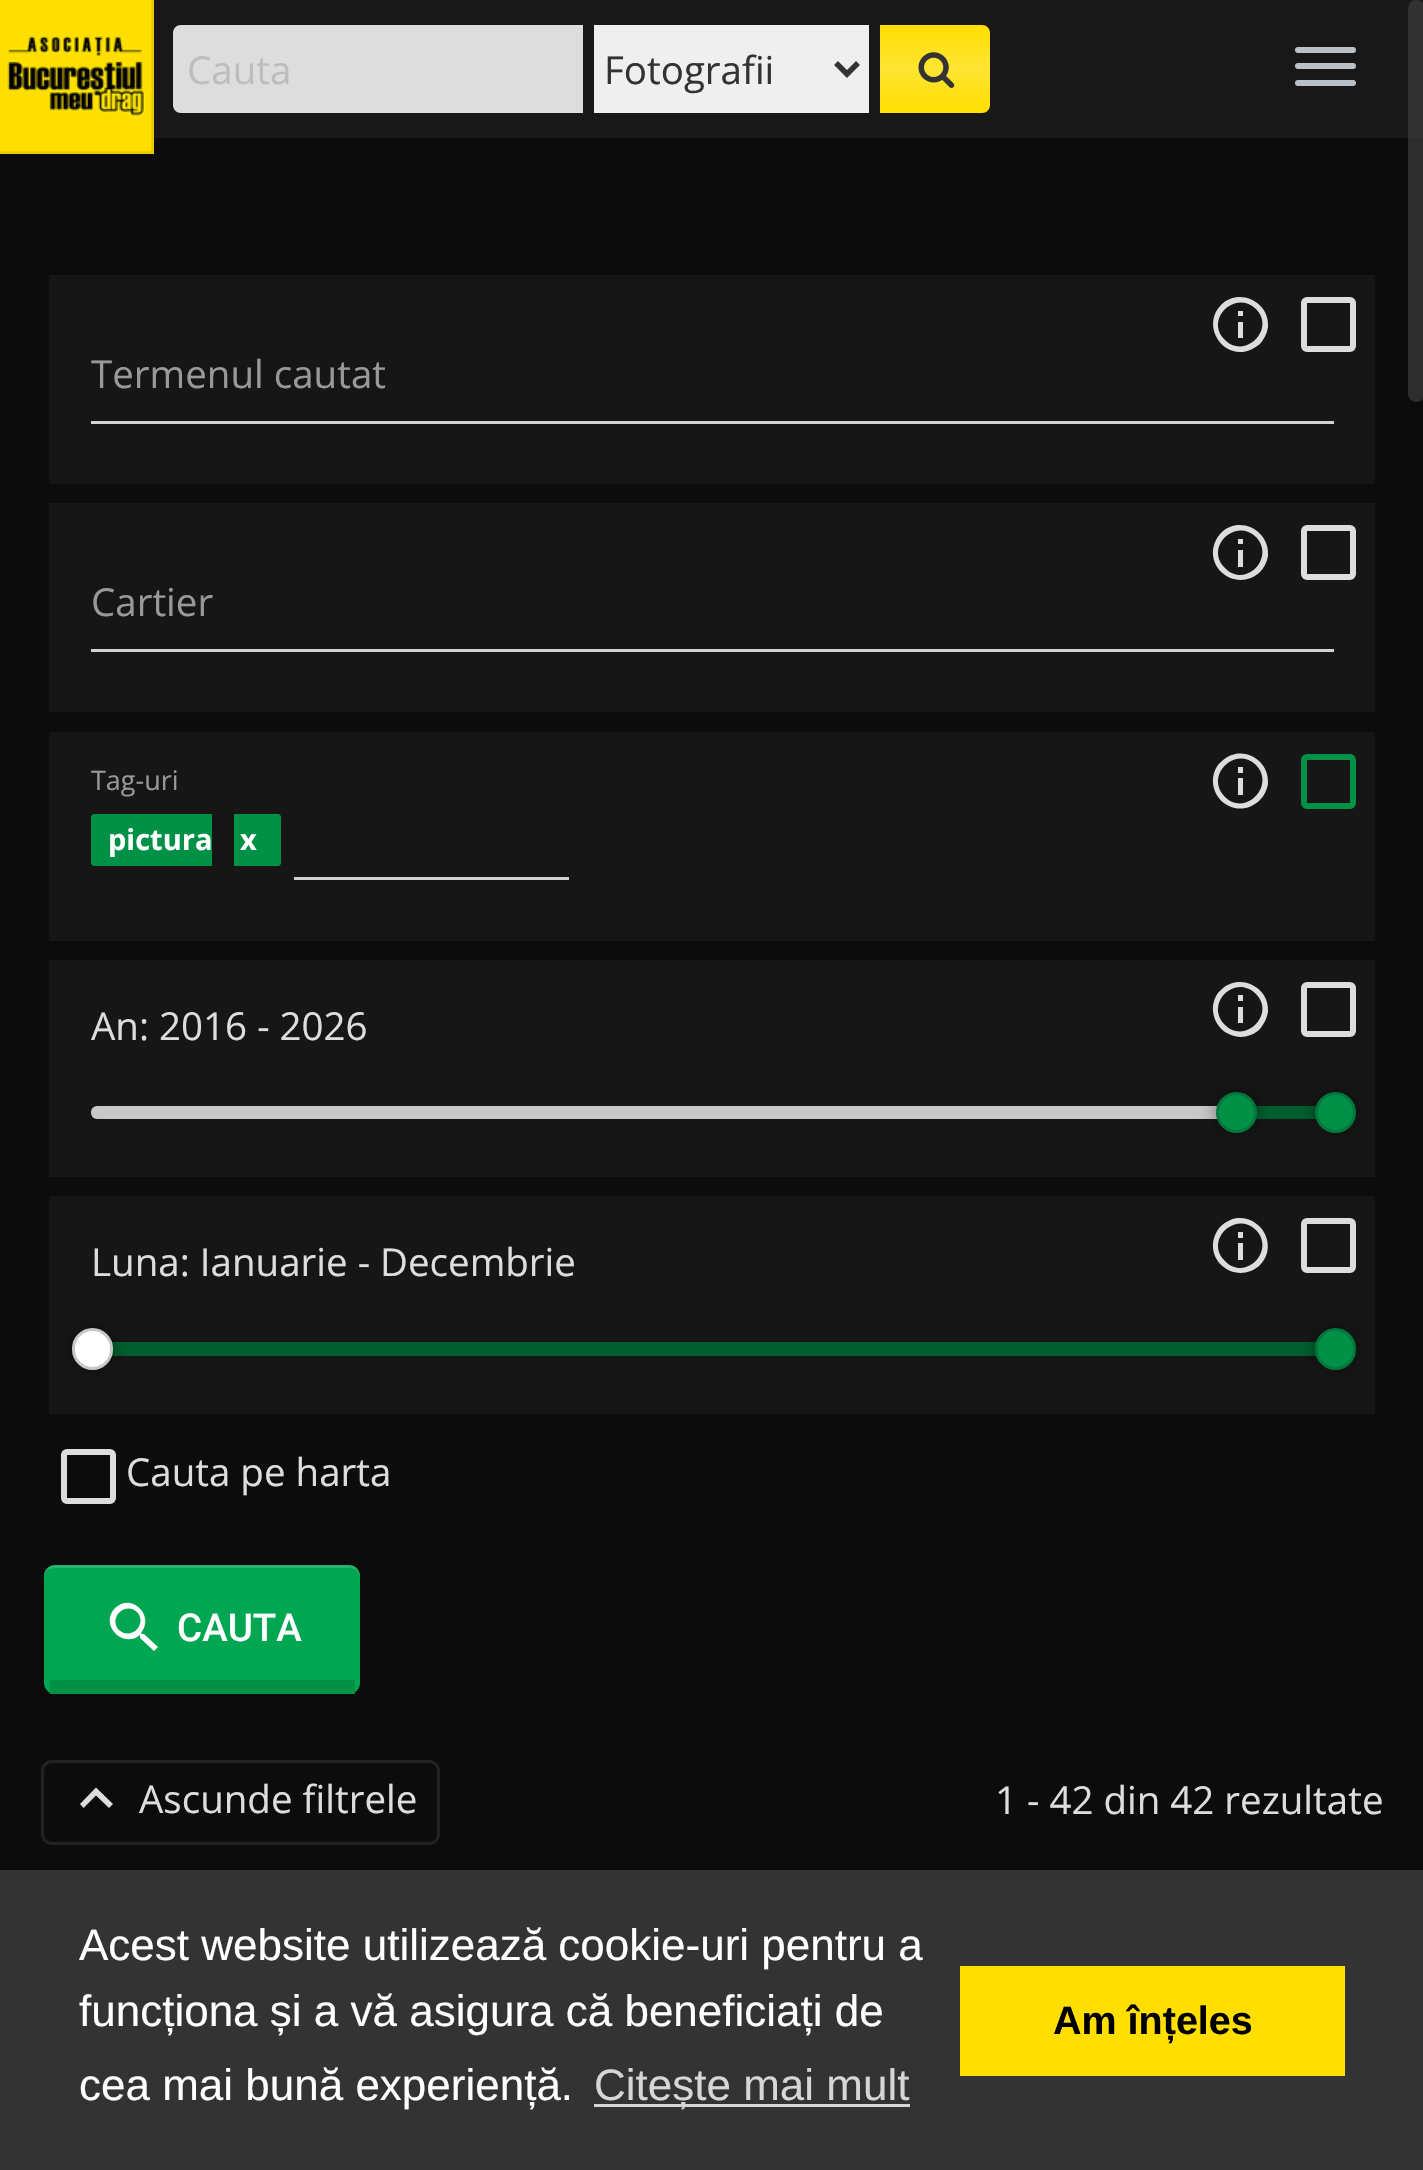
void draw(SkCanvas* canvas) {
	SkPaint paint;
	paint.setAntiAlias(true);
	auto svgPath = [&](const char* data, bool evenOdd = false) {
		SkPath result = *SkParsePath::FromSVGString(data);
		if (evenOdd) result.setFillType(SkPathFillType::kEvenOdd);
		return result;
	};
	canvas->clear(0xff0c0c0c);
	paint.setColor(0xff181818);
	canvas->drawRect(SkRect::MakeXYWH(154, 0, 1269, 138), paint);
	paint.setColor(0xffe6c800);
	canvas->drawRect(SkRect::MakeXYWH(151, 0, 3, 154), paint);
	canvas->drawRect(SkRect::MakeXYWH(0, 151, 154, 3), paint);
	canvas->drawImageRect(SkImages::DeferredFromEncodedData(SkData::MakeFromFileName("img1.png")), SkRect::MakeXYWH(0, 0, 152, 152), SkSamplingOptions());
	paint.setColor(0xffdddddd);
	canvas->drawPath(svgPath("M181 25H583V113H181C176.5 113 173 109.5 173 105V33C173 28.5 176.5 25 181 25Z"), paint);
	SkFont f1(fontMgr->matchFamilyStyle("Open Sans", SkFontStyle::Normal()), 38.5);
	f1.setSubpixel(true);
	paint.setColor(0xffbdbdbd);
	canvas->drawString("Cauta", 187, 84, f1, paint);
	paint.setColor(0xffefefef);
	canvas->drawRect(SkRect::MakeXYWH(594, 25, 275, 88), paint);
	paint.setStroke(true);
	paint.setStrokeWidth(5.5);
	paint.setColor(0xff333333);
	canvas->drawPath(svgPath("M836 63L847 74L858 63"), paint);
	paint.setStroke(false);
	canvas->drawString("Fotografii", 604, 84, f1, paint);
	{
		const SkColor colors[] = {0xffffde00, 0xffffe533, 0xffffde00};
		const float stops[] = {0, 0.5, 1};
		const SkPoint ends[] = {{935, 25}, {935, 113}};
		paint.setShader(SkGradientShader::MakeLinear(ends, colors, stops, 3, SkTileMode::kClamp));
		paint.setAlpha(255);
	}
	canvas->drawPath(svgPath("M880 25H982C986.5 25 990 28.5 990 33V105C990 109.5 986.5 113 982 113H880Z"), paint);
	canvas->drawImageRect(SkImages::DeferredFromEncodedData(SkData::MakeFromFileName("img2.png")), SkRect::MakeXYWH(918, 52, 37, 36), SkSamplingOptions());
	paint.setShader(nullptr);
	paint.setColor(0xffb9c1c7);
	canvas->drawRoundRect(SkRect::MakeXYWH(1295, 47, 61, 6), 3, 3, paint);
	canvas->drawRoundRect(SkRect::MakeXYWH(1295, 63, 61, 6), 3, 3, paint);
	canvas->drawRoundRect(SkRect::MakeXYWH(1295, 80, 61, 6), 3, 3, paint);
	paint.setColor(0x9c424242);
	canvas->drawRoundRect(SkRect::MakeXYWH(1408, 0, 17, 402), 8.5, 8.5, paint);
	paint.setColor(0xff161616);
	canvas->drawRect(SkRect::MakeXYWH(49, 275, 1326, 209), paint);
	paint.setColor(0xffdddddd);
	canvas->drawPath(svgPath("M1238 316V311H1243V316ZM1225 340C1245 360 1276 329 1256 309C1235 289 1204 320 1225 340ZM1221 305C1239 287 1270 302 1268 327C1267 334 1264 339 1260 344C1255 348 1249 351 1243 352C1218 354 1203 323 1221 305ZM1238 338V322H1243V338Z"), paint);
	paint.setStroke(true);
	paint.setStrokeWidth(6);
	canvas->drawRoundRect(SkRect::MakeXYWH(1304, 300, 49, 49), 3, 3, paint);
	paint.setStroke(false);
	paint.setColor(0xff999999);
	canvas->drawString("Termenul cautat", 91, 388, f1, paint);
	paint.setColor(0xffd2d2d2);
	canvas->drawRect(SkRect::MakeXYWH(91, 421, 1243, 3), paint);
	paint.setColor(0xff161616);
	canvas->drawRect(SkRect::MakeXYWH(49, 503, 1326, 209), paint);
	paint.setColor(0xffdddddd);
	canvas->drawPath(svgPath("M1238 544V539H1243V544ZM1225 568C1245 589 1276 558 1256 537C1235 517 1204 548 1225 568ZM1221 533C1239 515 1270 530 1268 556C1267 562 1264 568 1260 572C1241 590 1211 575 1213 550C1214 544 1216 538 1221 533ZM1238 567V550H1243V567Z"), paint);
	paint.setStroke(true);
	canvas->drawRoundRect(SkRect::MakeXYWH(1304, 528, 49, 49), 3, 3, paint);
	paint.setStroke(false);
	paint.setColor(0xff999999);
	canvas->drawString("Cartier", 91, 616, f1, paint);
	paint.setColor(0xffd2d2d2);
	canvas->drawRect(SkRect::MakeXYWH(91, 649, 1243, 3), paint);
	paint.setColor(0xff161616);
	canvas->drawRect(SkRect::MakeXYWH(49, 732, 1326, 209), paint);
	SkFont f2(fontMgr->matchFamilyStyle("Open Sans", SkFontStyle::Normal()), 27);
	f2.setSubpixel(true);
	paint.setColor(0xff999999);
	canvas->drawString("Tag-uri", 91, 790, f2, paint);
	paint.setColor(0xff009147);
	canvas->drawPath(svgPath("M94 814H212V866H94C92.5 866 91 864.5 91 863V817C91 815.5 92.5 814 94 814Z"), paint);
	SkFont f3(fontMgr->matchFamilyStyle("Open Sans", SkFontStyle::Bold()), 29);
	f3.setSubpixel(true);
	paint.setColor(0xffffffff);
	canvas->drawString("pictura", 108, 850, f3, paint);
	paint.setColor(0xff009147);
	canvas->drawPath(svgPath("M234 814H278C279.5 814 281 815.5 281 817V863C281 864.5 279.5 866 278 866H234Z"), paint);
	paint.setColor(0xffffffff);
	canvas->drawString("x", 240, 850, f3, paint);
	paint.setColor(0xffd2d2d2);
	canvas->drawRect(SkRect::MakeXYWH(294, 877, 275, 3), paint);
	paint.setColor(0xffdddddd);
	canvas->drawPath(svgPath("M1238 773V767H1243V773ZM1225 797C1245 817 1276 786 1256 765C1235 745 1204 776 1225 797ZM1221 762C1239 743 1270 758 1268 784C1267 790 1264 796 1260 800C1241 819 1211 804 1213 778C1214 772 1216 766 1221 762ZM1238 795V778H1243V795Z"), paint);
	paint.setStroke(true);
	paint.setColor(0xff009147);
	canvas->drawRoundRect(SkRect::MakeXYWH(1304, 757, 49, 49), 3, 3, paint);
	paint.setStroke(false);
	paint.setColor(0xff161616);
	canvas->drawRect(SkRect::MakeXYWH(49, 960, 1326, 217), paint);
	paint.setColor(0xffdddddd);
	canvas->drawString("An: 2016 - 2026", 91, 1040, f1, paint);
	paint.setColor(0xffc8c8c8);
	canvas->drawRoundRect(SkRect::MakeXYWH(91, 1106, 1243, 13), 6, 6, paint);
	paint.setColor(0xff005e2e);
	canvas->drawRect(SkRect::MakeXYWH(1255, 1106, 61, 13), paint);
	paint.setColor(0x4d000000);
	paint.setMaskFilter(SkMaskFilter::MakeBlur(kNormal_SkBlurStyle, 7));
	canvas->drawRoundRect(SkRect::MakeXYWH(1213, 1089, 47, 47), 23.5, 23.5, paint);
	paint.setMaskFilter(nullptr);
	paint.setColor(0xff009147);
	canvas->drawCircle(1236.5, 1112.5, 19, paint);
	paint.setStroke(true);
	paint.setStrokeWidth(3);
	paint.setColor(0xff00783b);
	canvas->drawCircle(1236.5, 1112.5, 19, paint);
	paint.setStroke(false);
	paint.setColor(0x4d000000);
	paint.setMaskFilter(SkMaskFilter::MakeBlur(kNormal_SkBlurStyle, 7));
	canvas->drawRoundRect(SkRect::MakeXYWH(1312, 1089, 47, 47), 23.5, 23.5, paint);
	paint.setMaskFilter(nullptr);
	paint.setColor(0xff009147);
	canvas->drawCircle(1335.5, 1112.5, 19, paint);
	paint.setStroke(true);
	paint.setColor(0xff00783b);
	canvas->drawCircle(1335.5, 1112.5, 19, paint);
	paint.setStroke(false);
	paint.setColor(0xffdddddd);
	canvas->drawPath(svgPath("M1238 1001V995H1243V1001ZM1225 1025C1245 1045 1276 1014 1256 994C1235 973 1204 1004 1225 1025ZM1221 990C1239 972 1270 987 1268 1012C1267 1018 1264 1024 1260 1029C1241 1047 1211 1032 1213 1006C1214 1000 1216 994 1221 990ZM1238 1023V1007H1243V1023Z"), paint);
	paint.setStroke(true);
	paint.setStrokeWidth(6);
	canvas->drawRoundRect(SkRect::MakeXYWH(1304, 985, 49, 49), 3, 3, paint);
	paint.setStroke(false);
	paint.setColor(0xff161616);
	canvas->drawRect(SkRect::MakeXYWH(49, 1196, 1326, 218), paint);
	paint.setColor(0xffdddddd);
	canvas->drawString("Luna: Ianuarie - Decembrie", 91, 1276, f1, paint);
	paint.setColor(0xff005e2e);
	canvas->drawRect(SkRect::MakeXYWH(111, 1342, 1205, 14), paint);
	paint.setColor(0x4d000000);
	paint.setMaskFilter(SkMaskFilter::MakeBlur(kNormal_SkBlurStyle, 7));
	canvas->drawRoundRect(SkRect::MakeXYWH(69, 1326, 47, 46), 23, 23, paint);
	paint.setMaskFilter(nullptr);
	paint.setColor(0xffffffff);
	canvas->drawRoundRect(SkRect::MakeXYWH(73.5, 1329.5, 38, 39), 19, 19, paint);
	paint.setStroke(true);
	paint.setStrokeWidth(3);
	paint.setColor(0xffc8c8c8);
	canvas->drawRoundRect(SkRect::MakeXYWH(73.5, 1329.5, 38, 39), 19, 19, paint);
	paint.setStroke(false);
	paint.setColor(0x4d000000);
	paint.setMaskFilter(SkMaskFilter::MakeBlur(kNormal_SkBlurStyle, 7));
	canvas->drawRoundRect(SkRect::MakeXYWH(1312, 1326, 47, 46), 23, 23, paint);
	paint.setMaskFilter(nullptr);
	paint.setColor(0xff009147);
	canvas->drawRoundRect(SkRect::MakeXYWH(1316.5, 1329.5, 38, 39), 19, 19, paint);
	paint.setStroke(true);
	paint.setColor(0xff00783b);
	canvas->drawRoundRect(SkRect::MakeXYWH(1316.5, 1329.5, 38, 39), 19, 19, paint);
	paint.setStroke(false);
	paint.setColor(0xffdddddd);
	canvas->drawPath(svgPath("M1238 1238V1232H1243V1238ZM1225 1261C1245 1282 1276 1251 1256 1230C1235 1210 1204 1241 1225 1261ZM1221 1226C1225 1222 1231 1219 1237 1218C1263 1216 1278 1247 1260 1265C1241 1283 1211 1268 1213 1243C1214 1237 1216 1231 1221 1226ZM1238 1260V1243H1243V1260Z"), paint);
	paint.setStroke(true);
	paint.setStrokeWidth(6);
	canvas->drawRoundRect(SkRect::MakeXYWH(1304, 1221, 49, 49), 3, 3, paint);
	canvas->drawRoundRect(SkRect::MakeXYWH(64, 1452, 49, 49), 3, 3, paint);
	paint.setStroke(false);
	canvas->drawString("Cauta pe harta", 126, 1486, f1, paint);
	paint.setColor(0xff00a651);
	canvas->drawRoundRect(SkRect::MakeXYWH(44, 1565, 316, 129), 11, 11, paint);
	paint.setColor(0x26ffffff);
	canvas->drawPath(svgPath("M55 1568H349C355 1568 360 1572 360 1578V1680V1576C360 1570 355 1565 349 1565H55C49 1565 44 1570 44 1576V1578C44 1572 49 1568 55 1568Z"), paint);
	paint.setColor(0xff009046);
	canvas->drawRect(SkRect::MakeXYWH(50, 1680, 305, 14), paint);
	paint.setColor(0xffffffff);
	canvas->drawPath(svgPath("M119 1630C131 1641 148 1624 137 1612C125 1601 108 1618 119 1630ZM144 1634L158 1647L154 1651L140 1638V1635C123 1649 99 1625 115 1608C132 1592 155 1616 141 1633L142 1634Z"), paint);
	SkFont f4(fontMgr->matchFamilyStyle("Roboto", SkFontStyle(500, SkFontStyle::kNormal_Width, SkFontStyle::kUpright_Slant)), 38.5);
	f4.setSubpixel(true);
	canvas->drawString("CAUTA", 177, 1641, f4, paint);
	paint.setStroke(true);
	paint.setStrokeWidth(3);
	paint.setColor(0xff222222);
	canvas->drawRoundRect(SkRect::MakeXYWH(42.5, 1761.5, 396, 82), 9.5, 9.5, paint);
	paint.setStroke(false);
	paint.setColor(0xffdddddd);
	canvas->drawPath(svgPath("M83.5 1808L80 1804L96 1787.5L113 1804L109 1808L96 1795.5Z"), paint);
	canvas->drawString("Ascunde filtrele", 139, 1813, f1, paint);
	canvas->drawString("1 - 42 din 42 rezultate", 995, 1814, f1, paint);
	paint.setColor(0xff333333);
	canvas->drawRect(SkRect::MakeXYWH(0, 1870, 1423, 300), paint);
	SkFont f5(fontMgr->matchFamilyStyle("Liberation Sans", SkFontStyle::Normal()), 44);
	f5.setSubpixel(true);
	paint.setColor(0xffffffff);
	canvas->drawString("Acest website utilizează cookie-uri pentru a", 79, 1960, f5, paint);
	canvas->drawString("funcționa și a vă asigura că beneficiați de", 79, 2026, f5, paint);
	canvas->drawString("cea mai bună experiență.", 79, 2100, f5, paint);
	paint.setColor(0xffd6d6d6);
	canvas->drawRect(SkRect::MakeXYWH(594, 2104, 316, 3), paint);
	canvas->drawString("Citește mai mult", 594, 2100, f5, paint);
	paint.setColor(0xffffde00);
	canvas->drawRect(SkRect::MakeXYWH(960, 1966, 385, 110), paint);
	SkFont f6(fontMgr->matchFamilyStyle("Liberation Sans", SkFontStyle::Bold()), 39.5);
	f6.setSubpixel(true);
	paint.setColor(0xff000000);
	canvas->drawString("Am înțeles", 1053, 2034, f6, paint);
}
